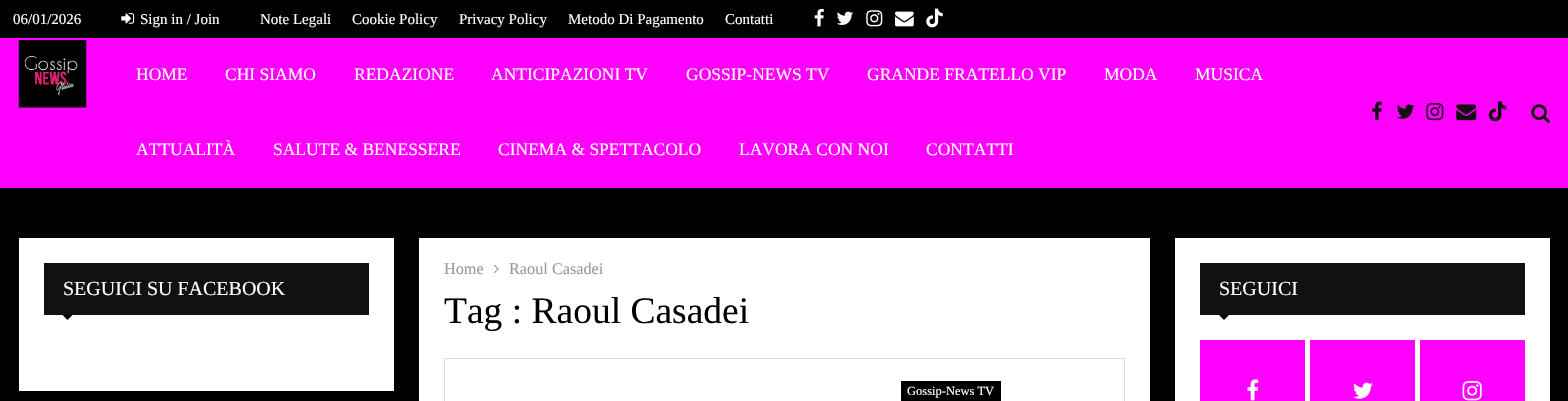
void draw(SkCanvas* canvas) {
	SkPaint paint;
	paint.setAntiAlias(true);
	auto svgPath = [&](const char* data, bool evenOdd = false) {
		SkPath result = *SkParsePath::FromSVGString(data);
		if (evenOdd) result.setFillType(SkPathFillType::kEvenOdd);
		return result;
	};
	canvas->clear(0xff000000);
	SkFont f1(fontMgr->matchFamilyStyle("Liberation Serif", SkFontStyle::Normal()), 15);
	f1.setSubpixel(true);
	paint.setColor(0xffffffff);
	canvas->drawString("06/01/2026", 13, 24, f1, paint);
	canvas->drawImageRect(SkImages::DeferredFromEncodedData(SkData::MakeFromFileName("img1.png")), SkRect::MakeXYWH(121, 13, 14, 11), SkSamplingOptions());
	canvas->drawString("Sign in / Join", 140, 24, f1, paint);
	canvas->drawString("Note Legali", 260, 24, f1, paint);
	canvas->drawString("Cookie Policy", 352, 24, f1, paint);
	canvas->drawString("Privacy Policy", 459, 24, f1, paint);
	canvas->drawString("Metodo Di Pagamento", 568, 24, f1, paint);
	canvas->drawString("Contatti", 725, 24, f1, paint);
	canvas->drawImageRect(SkImages::DeferredFromEncodedData(SkData::MakeFromFileName("img2.png")), SkRect::MakeXYWH(814, 8, 10, 19), SkSamplingOptions());
	canvas->drawImageRect(SkImages::DeferredFromEncodedData(SkData::MakeFromFileName("img3.png")), SkRect::MakeXYWH(836, 11, 17, 14), SkSamplingOptions());
	canvas->drawImageRect(SkImages::DeferredFromEncodedData(SkData::MakeFromFileName("img4.png")), SkRect::MakeXYWH(866, 10, 17, 17), SkSamplingOptions());
	canvas->drawImageRect(SkImages::DeferredFromEncodedData(SkData::MakeFromFileName("img5.png")), SkRect::MakeXYWH(895, 11, 19, 16), SkSamplingOptions());
	canvas->drawImageRect(SkImages::DeferredFromEncodedData(SkData::MakeFromFileName("img6.png")), SkRect::MakeXYWH(926, 8, 17, 20), SkSamplingOptions());
	paint.setColor(0xffff00ff);
	canvas->drawRect(SkRect::MakeXYWH(0, 38, 1568, 150), paint);
	canvas->drawImageRect(SkImages::DeferredFromEncodedData(SkData::MakeFromFileName("img7.png")), SkRect::MakeXYWH(18, 40, 69, 68), SkSamplingOptions());
	SkFont f2(fontMgr->matchFamilyStyle("Liberation Serif", SkFontStyle::Normal()), 17.5);
	f2.setSubpixel(true);
	paint.setColor(0xffffffff);
	canvas->drawString("HOME", 136, 80, f2, paint);
	canvas->drawString("CHI SIAMO", 225, 80, f2, paint);
	canvas->drawString("REDAZIONE", 354, 80, f2, paint);
	canvas->drawString("ANTICIPAZIONI TV", 491, 80, f2, paint);
	canvas->drawString("GOSSIP-NEWS TV", 686, 80, f2, paint);
	canvas->drawString("GRANDE FRATELLO VIP", 867, 80, f2, paint);
	canvas->drawString("MODA", 1104, 80, f2, paint);
	canvas->drawString("MUSICA", 1195, 80, f2, paint);
	canvas->drawString("ATTUALITÀ", 136, 155, f2, paint);
	canvas->drawString("SALUTE & BENESSERE", 273, 155, f2, paint);
	canvas->drawString("CINEMA & SPETTACOLO", 498, 155, f2, paint);
	canvas->drawString("LAVORA CON NOI", 739, 155, f2, paint);
	canvas->drawString("CONTATTI", 926, 155, f2, paint);
	canvas->drawImageRect(SkImages::DeferredFromEncodedData(SkData::MakeFromFileName("img8.png")), SkRect::MakeXYWH(1372, 101, 10, 20), SkSamplingOptions());
	canvas->drawImageRect(SkImages::DeferredFromEncodedData(SkData::MakeFromFileName("img9.png")), SkRect::MakeXYWH(1397, 104, 18, 15), SkSamplingOptions());
	canvas->drawImageRect(SkImages::DeferredFromEncodedData(SkData::MakeFromFileName("img10.png")), SkRect::MakeXYWH(1426, 103, 18, 18), SkSamplingOptions());
	canvas->drawImageRect(SkImages::DeferredFromEncodedData(SkData::MakeFromFileName("img11.png")), SkRect::MakeXYWH(1456, 104, 21, 17), SkSamplingOptions());
	canvas->drawImageRect(SkImages::DeferredFromEncodedData(SkData::MakeFromFileName("img12.png")), SkRect::MakeXYWH(1488, 101, 19, 21), SkSamplingOptions());
	canvas->drawImageRect(SkImages::DeferredFromEncodedData(SkData::MakeFromFileName("img13.png")), SkRect::MakeXYWH(1531, 104, 19, 19), SkSamplingOptions());
	canvas->drawRect(SkRect::MakeXYWH(19, 238, 375, 153), paint);
	paint.setColor(0xff111111);
	canvas->drawRect(SkRect::MakeXYWH(44, 263, 325, 52), paint);
	SkFont f3(fontMgr->matchFamilyStyle("Liberation Serif", SkFontStyle::Normal()), 20);
	f3.setSubpixel(true);
	paint.setColor(0xffffffff);
	canvas->drawString("SEGUICI SU FACEBOOK", 63, 295, f3, paint);
	paint.setColor(0xff000000);
	canvas->drawPath(svgPath("M62.5 315H72.5L67.5 320Z"), paint);
	paint.setColor(0xffffffff);
	canvas->drawRect(SkRect::MakeXYWH(419, 238, 731, 163), paint);
	SkFont f4(fontMgr->matchFamilyStyle("Liberation Serif", SkFontStyle::Normal()), 16.25);
	f4.setSubpixel(true);
	paint.setColor(0xff999999);
	canvas->drawString("Home", 444, 274, f4, paint);
	canvas->drawImageRect(SkImages::DeferredFromEncodedData(SkData::MakeFromFileName("img14.png")), SkRect::MakeXYWH(493, 264, 6, 9), SkSamplingOptions());
	canvas->drawString("Raoul Casadei", 509, 274, f4, paint);
	SkFont f5(fontMgr->matchFamilyStyle("Liberation Serif", SkFontStyle::Normal()), 37.5);
	f5.setSubpixel(true);
	paint.setColor(0xff000000);
	canvas->drawString("Tag : Raoul Casadei", 444, 323, f5, paint);
	paint.setStroke(true);
	paint.setStrokeWidth(1);
	paint.setColor(0xffdedede);
	canvas->drawRect(SkRect::MakeXYWH(444.5, 358.5, 680, 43), paint);
	paint.setStroke(false);
	paint.setColor(0xff000000);
	canvas->drawRect(SkRect::MakeXYWH(901, 381, 100, 20), paint);
	SkFont f6(fontMgr->matchFamilyStyle("Liberation Serif", SkFontStyle::Normal()), 12.5);
	f6.setSubpixel(true);
	paint.setColor(0xffffffff);
	canvas->drawString("Gossip-News TV", 907, 395, f6, paint);
	canvas->drawRect(SkRect::MakeXYWH(1175, 238, 375, 163), paint);
	paint.setColor(0xff111111);
	canvas->drawRect(SkRect::MakeXYWH(1200, 263, 325, 52), paint);
	paint.setColor(0xffffffff);
	canvas->drawString("SEGUICI", 1219, 295, f3, paint);
	paint.setColor(0xff000000);
	canvas->drawPath(svgPath("M1219 315H1229L1224 320Z"), paint);
	paint.setColor(0xffff00ff);
	canvas->drawRect(SkRect::MakeXYWH(1200, 340, 105, 61), paint);
	canvas->drawImageRect(SkImages::DeferredFromEncodedData(SkData::MakeFromFileName("img15.png")), SkRect::MakeXYWH(1247, 379, 12, 22), SkSamplingOptions());
	canvas->drawRect(SkRect::MakeXYWH(1310, 340, 105, 61), paint);
	canvas->drawImageRect(SkImages::DeferredFromEncodedData(SkData::MakeFromFileName("img16.png")), SkRect::MakeXYWH(1353, 382, 20, 17), SkSamplingOptions());
	canvas->drawRect(SkRect::MakeXYWH(1420, 340, 105, 61), paint);
	canvas->drawImageRect(SkImages::DeferredFromEncodedData(SkData::MakeFromFileName("img17.png")), SkRect::MakeXYWH(1462, 381, 20, 20), SkSamplingOptions());
}
